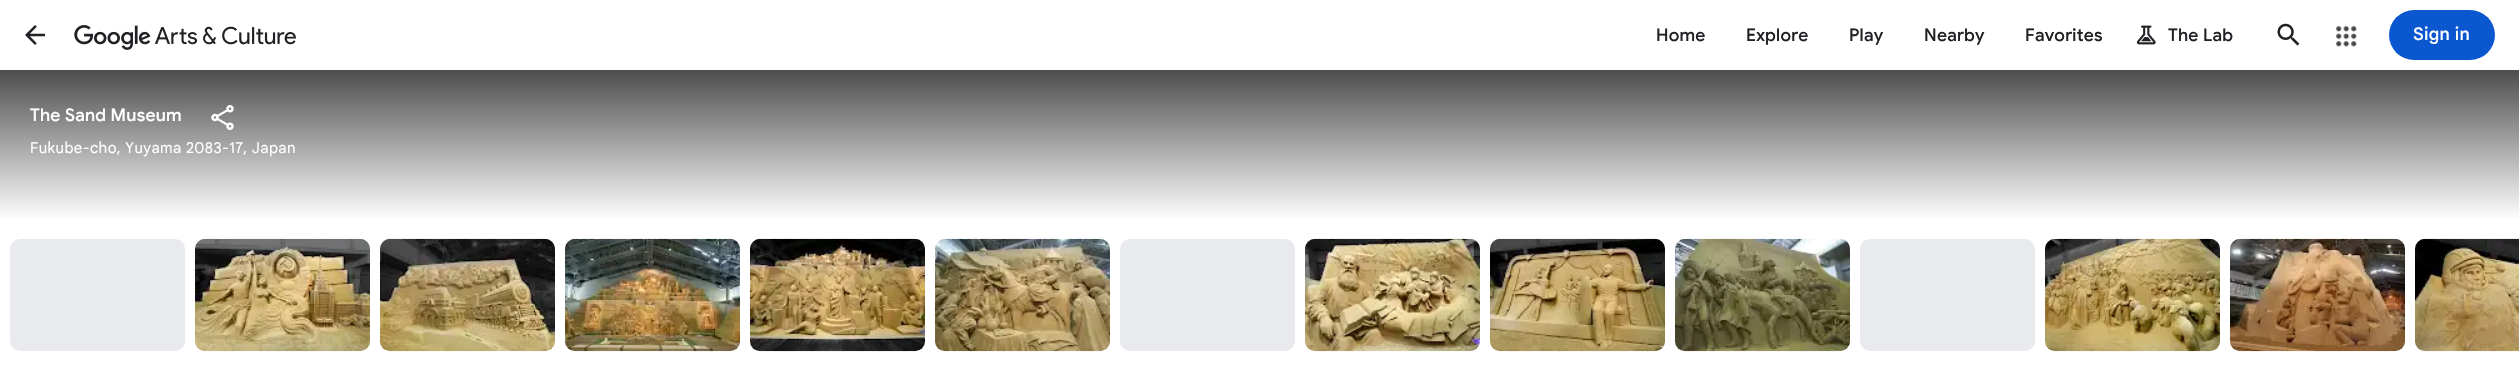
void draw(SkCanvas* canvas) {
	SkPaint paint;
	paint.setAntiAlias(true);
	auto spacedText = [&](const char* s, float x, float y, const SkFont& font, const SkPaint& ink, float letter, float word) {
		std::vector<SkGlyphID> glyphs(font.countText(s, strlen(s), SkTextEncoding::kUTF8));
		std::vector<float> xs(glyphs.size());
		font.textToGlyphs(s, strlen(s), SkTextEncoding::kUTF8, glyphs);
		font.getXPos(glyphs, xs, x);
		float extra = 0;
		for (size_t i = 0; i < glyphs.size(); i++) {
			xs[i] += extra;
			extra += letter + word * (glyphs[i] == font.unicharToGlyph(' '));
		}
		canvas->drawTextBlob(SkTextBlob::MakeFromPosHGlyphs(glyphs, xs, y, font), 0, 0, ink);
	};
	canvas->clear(0xffffffff);
	canvas->drawImageRect(SkImages::DeferredFromEncodedData(SkData::MakeFromFileName("img1.png")), SkRect::MakeXYWH(25, 25, 20, 20), SkSamplingOptions());
	canvas->drawImageRect(SkImages::DeferredFromEncodedData(SkData::MakeFromFileName("img2.png")), SkRect::MakeXYWH(74, 25, 222, 25), SkSamplingOptions());
	SkFont f1(fontMgr->matchFamilyStyle("Google Sans", SkFontStyle(500, SkFontStyle::kNormal_Width, SkFontStyle::kUpright_Slant)), 17.5);
	f1.setSubpixel(true);
	paint.setColor(0xff202124);
	spacedText("Home", 1656, 41, f1, paint, 0.25, 0);
	spacedText("Explore", 1746, 41, f1, paint, 0.25, 0);
	spacedText("Play", 1849, 41, f1, paint, 0.25, 0);
	spacedText("Nearby", 1924, 41, f1, paint, 0.25, 0);
	spacedText("Favorites", 2025, 41, f1, paint, 0.25, 0);
	canvas->drawImageRect(SkImages::DeferredFromEncodedData(SkData::MakeFromFileName("img3.png")), SkRect::MakeXYWH(2136, 25, 20, 20), SkSamplingOptions());
	spacedText("The Lab", 2168, 41, f1, paint, 0.25, 0);
	canvas->drawImageRect(SkImages::DeferredFromEncodedData(SkData::MakeFromFileName("img4.png")), SkRect::MakeXYWH(2277, 23, 23, 23), SkSamplingOptions());
	canvas->drawImageRect(SkImages::DeferredFromEncodedData(SkData::MakeFromFileName("img5.png")), SkRect::MakeXYWH(2336, 26, 21, 21), SkSamplingOptions());
	paint.setColor(0xff0b57d0);
	canvas->drawRoundRect(SkRect::MakeXYWH(2389, 10, 106, 50), 25, 25, paint);
	SkFont f2(fontMgr->matchFamilyStyle("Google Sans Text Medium", SkFontStyle(500, SkFontStyle::kNormal_Width, SkFontStyle::kUpright_Slant)), 17.5);
	f2.setSubpixel(true);
	paint.setColor(0xffffffff);
	spacedText("Sign in", 2413, 40, f2, paint, 0.25, 0);
	{
		const SkColor colors[] = {0xff4d4d4d, 0xffffffff};
		const float stops[] = {0, 1};
		const SkPoint ends[] = {{1260, 70}, {1260, 220}};
		paint.setShader(SkGradientShader::MakeLinear(ends, colors, stops, 2, SkTileMode::kClamp));
		paint.setAlpha(255);
	}
	canvas->drawRect(SkRect::MakeXYWH(0, 70, 2519, 148), paint);
	paint.setShader(nullptr);
	paint.setColor(0xffffffff);
	spacedText("The Sand Museum", 30, 121, f1, paint, 0.25, 0);
	canvas->drawImageRect(SkImages::DeferredFromEncodedData(SkData::MakeFromFileName("img6.png")), SkRect::MakeXYWH(211, 105, 23, 25), SkSamplingOptions());
	SkFont f3(fontMgr->matchFamilyStyle("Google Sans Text", SkFontStyle::Normal()), 15);
	f3.setSubpixel(true);
	spacedText("Fukube-cho, Yuyama 2083-17, Japan", 30, 153, f3, paint, 0.4, 0);
	paint.setColor(0xffe8eaed);
	canvas->drawRoundRect(SkRect::MakeXYWH(10, 239, 175, 112), 10, 10, paint);
	canvas->drawImageRect(SkImages::DeferredFromEncodedData(SkData::MakeFromFileName("img7.png")), SkRect::MakeXYWH(195, 238, 175, 114), SkSamplingOptions());
	canvas->drawImageRect(SkImages::DeferredFromEncodedData(SkData::MakeFromFileName("img8.png")), SkRect::MakeXYWH(380, 238, 175, 114), SkSamplingOptions());
	canvas->drawImageRect(SkImages::DeferredFromEncodedData(SkData::MakeFromFileName("img9.png")), SkRect::MakeXYWH(565, 238, 175, 114), SkSamplingOptions());
	canvas->drawImageRect(SkImages::DeferredFromEncodedData(SkData::MakeFromFileName("img10.png")), SkRect::MakeXYWH(750, 238, 175, 114), SkSamplingOptions());
	canvas->drawImageRect(SkImages::DeferredFromEncodedData(SkData::MakeFromFileName("img11.png")), SkRect::MakeXYWH(935, 238, 175, 114), SkSamplingOptions());
	canvas->drawRoundRect(SkRect::MakeXYWH(1120, 239, 175, 112), 10, 10, paint);
	canvas->drawImageRect(SkImages::DeferredFromEncodedData(SkData::MakeFromFileName("img12.png")), SkRect::MakeXYWH(1305, 238, 175, 114), SkSamplingOptions());
	canvas->drawImageRect(SkImages::DeferredFromEncodedData(SkData::MakeFromFileName("img13.png")), SkRect::MakeXYWH(1490, 238, 175, 114), SkSamplingOptions());
	canvas->drawImageRect(SkImages::DeferredFromEncodedData(SkData::MakeFromFileName("img14.png")), SkRect::MakeXYWH(1675, 238, 175, 114), SkSamplingOptions());
	canvas->drawRoundRect(SkRect::MakeXYWH(1860, 239, 175, 112), 10, 10, paint);
	canvas->drawImageRect(SkImages::DeferredFromEncodedData(SkData::MakeFromFileName("img15.png")), SkRect::MakeXYWH(2045, 238, 175, 114), SkSamplingOptions());
	canvas->drawImageRect(SkImages::DeferredFromEncodedData(SkData::MakeFromFileName("img16.png")), SkRect::MakeXYWH(2230, 238, 175, 114), SkSamplingOptions());
	canvas->drawImageRect(SkImages::DeferredFromEncodedData(SkData::MakeFromFileName("img17.png")), SkRect::MakeXYWH(2415, 238, 104, 114), SkSamplingOptions());
}
